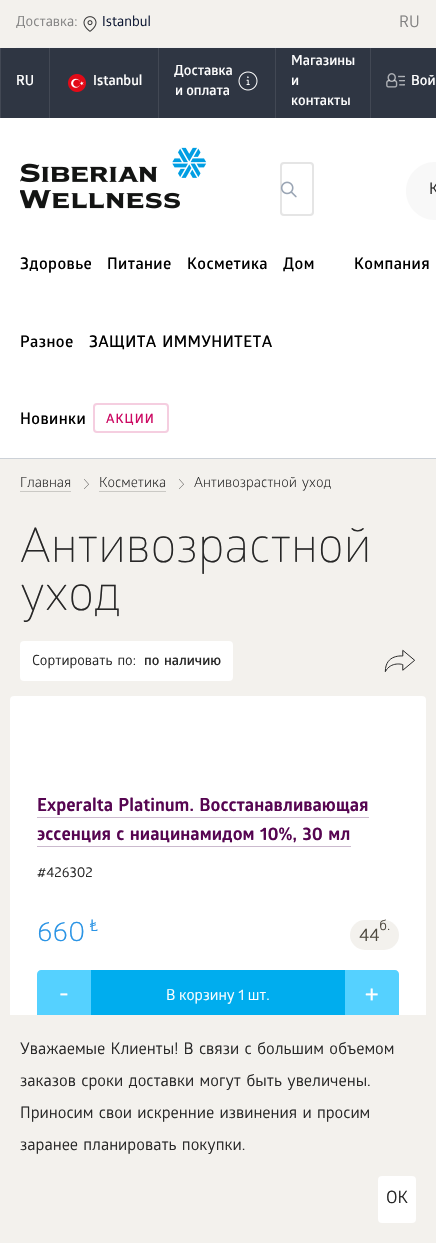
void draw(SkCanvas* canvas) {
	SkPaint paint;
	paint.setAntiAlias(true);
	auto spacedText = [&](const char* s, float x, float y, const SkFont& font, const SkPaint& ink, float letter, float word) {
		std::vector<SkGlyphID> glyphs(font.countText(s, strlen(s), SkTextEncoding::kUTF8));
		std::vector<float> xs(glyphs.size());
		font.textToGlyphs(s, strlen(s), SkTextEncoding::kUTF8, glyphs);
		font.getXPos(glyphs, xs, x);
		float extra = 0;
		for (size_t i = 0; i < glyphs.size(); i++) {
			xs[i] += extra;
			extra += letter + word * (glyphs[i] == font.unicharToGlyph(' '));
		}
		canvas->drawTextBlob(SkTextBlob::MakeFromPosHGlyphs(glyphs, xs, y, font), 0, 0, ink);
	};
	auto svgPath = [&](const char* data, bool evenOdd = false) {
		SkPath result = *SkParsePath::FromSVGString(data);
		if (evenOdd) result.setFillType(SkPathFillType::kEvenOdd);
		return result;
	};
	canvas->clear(0xffffffff);
	paint.setColor(0xfff3f1ed);
	canvas->drawRect(SkRect::MakeXYWH(0, 0, 436, 48), paint);
	SkFont f1(fontMgr->matchFamilyStyle("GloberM", SkFontStyle::Normal()), 14);
	f1.setSubpixel(true);
	paint.setColor(0xff818181);
	canvas->drawString("Доставка:", 16, 26, f1, paint);
	canvas->drawImageRect(SkImages::DeferredFromEncodedData(SkData::MakeFromFileName("img1.png")), SkRect::MakeXYWH(83, 16, 14, 16), SkSamplingOptions());
	paint.setColor(0xff06112e);
	canvas->drawString("Istanbul", 102, 26, f1, paint);
	SkFont f2(fontMgr->matchFamilyStyle("GloberM", SkFontStyle::Normal()), 16);
	f2.setSubpixel(true);
	paint.setColor(0xff818181);
	canvas->drawString("RU", 399, 27, f2, paint);
	paint.setColor(0xffeeeeee);
	canvas->drawRect(SkRect::MakeXYWH(16, 47, 404, 1), paint);
	paint.setColor(0xff2f3643);
	canvas->drawRect(SkRect::MakeXYWH(1, 48, 435, 70), paint);
	paint.setColor(0xff424854);
	canvas->drawRect(SkRect::MakeXYWH(0, 48, 1, 70), paint);
	SkFont f3(fontMgr->matchFamilyStyle("GloberM", SkFontStyle(600, SkFontStyle::kNormal_Width, SkFontStyle::kUpright_Slant)), 14);
	f3.setSubpixel(true);
	paint.setColor(0xffffffff);
	canvas->drawString("RU", 16, 85, f3, paint);
	paint.setColor(0xff424854);
	canvas->drawRect(SkRect::MakeXYWH(49, 48, 1, 70), paint);
	canvas->drawImageRect(SkImages::DeferredFromEncodedData(SkData::MakeFromFileName("img2.png")), SkRect::MakeXYWH(68, 74, 18, 18), SkSamplingOptions());
	paint.setColor(0xffffffff);
	canvas->drawString("Istanbul", 93, 85, f3, paint);
	paint.setColor(0xff424854);
	canvas->drawRect(SkRect::MakeXYWH(158, 48, 1, 70), paint);
	paint.setColor(0xffffffff);
	canvas->drawString("Доставка", 174, 75, f3, paint);
	canvas->drawImageRect(SkImages::DeferredFromEncodedData(SkData::MakeFromFileName("img3.png")), SkRect::MakeXYWH(238, 71, 20, 20), SkSamplingOptions());
	canvas->drawString("и оплата", 175, 95, f3, paint);
	paint.setColor(0xff424854);
	canvas->drawRect(SkRect::MakeXYWH(275, 48, 1, 70), paint);
	paint.setColor(0xffffffff);
	canvas->drawString("Магазины", 291, 65, f3, paint);
	canvas->drawString("и", 291, 85, f3, paint);
	canvas->drawString("контакты", 291, 105, f3, paint);
	paint.setColor(0xff424854);
	canvas->drawRect(SkRect::MakeXYWH(370, 48, 1, 70), paint);
	canvas->drawImageRect(SkImages::DeferredFromEncodedData(SkData::MakeFromFileName("img4.png")), SkRect::MakeXYWH(386, 73, 19, 15), SkSamplingOptions());
	paint.setColor(0xffffffff);
	canvas->drawString("Вой", 411, 85, f3, paint);
	paint.setColor(0xffccd1d7);
	canvas->drawRect(SkRect::MakeXYWH(0, 458, 436, 1), paint);
	canvas->drawImageRect(SkImages::DeferredFromEncodedData(SkData::MakeFromFileName("img5.png")), SkRect::MakeXYWH(20, 147, 187, 62), SkSamplingOptions());
	paint.setStroke(true);
	paint.setStrokeWidth(2);
	paint.setColor(0xffe5e5e5);
	canvas->drawRoundRect(SkRect::MakeXYWH(281, 163, 32, 52), 3, 3, paint);
	canvas->drawImageRect(SkImages::DeferredFromEncodedData(SkData::MakeFromFileName("img6.png")), SkRect::MakeXYWH(280, 181, 17, 17), SkSamplingOptions());
	paint.setStroke(false);
	paint.setColor(0xfff8f8f8);
	canvas->drawPath(svgPath("M435 162H436V220H435C419 220 406 207 406 191C406 175 419 162 435 162Z"), paint);
	paint.setColor(0xff272727);
	spacedText("К", 429, 194, f2, paint, 0, 1.5);
	SkFont f4(fontMgr->matchFamilyStyle("GloberM", SkFontStyle(600, SkFontStyle::kNormal_Width, SkFontStyle::kUpright_Slant)), 16);
	f4.setSubpixel(true);
	paint.setColor(0xff000000);
	spacedText("Здоровье", 20, 269, f4, paint, 0.4, 0);
	spacedText("Питание", 107, 269, f4, paint, 0.4, 0);
	spacedText("Косметика", 187, 269, f4, paint, 0.4, 0);
	spacedText("Дом", 283, 269, f4, paint, 0.4, 0);
	spacedText("Разное", 20, 347, f4, paint, 0.4, 0);
	spacedText("ЗАЩИТА ИММУНИТЕТА", 89, 347, f4, paint, 0.4, 1.5);
	spacedText("Новинки", 20, 424, f4, paint, 0.4, 0);
	paint.setStroke(true);
	paint.setColor(0xfff5cee0);
	canvas->drawRoundRect(SkRect::MakeXYWH(94, 404, 74, 28), 3, 3, paint);
	SkFont f5(fontMgr->matchFamilyStyle("GloberM", SkFontStyle(600, SkFontStyle::kNormal_Width, SkFontStyle::kUpright_Slant)), 13);
	f5.setSubpixel(true);
	paint.setStroke(false);
	paint.setColor(0xffcc0862);
	spacedText("АКЦИИ", 106, 423, f5, paint, 1, 0);
	paint.setColor(0xff000000);
	spacedText("Компания", 354, 269, f4, paint, 0.4, 0);
	paint.setColor(0xfff3f1ed);
	canvas->drawRect(SkRect::MakeXYWH(0, 459, 436, 556), paint);
	canvas->drawImageRect(SkImages::DeferredFromEncodedData(SkData::MakeFromFileName("img7.png")), SkRect::MakeXYWH(84, 479, 5, 10), SkSamplingOptions());
	SkFont f6(fontMgr->matchFamilyStyle("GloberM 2", SkFontStyle::Normal()), 14);
	f6.setSubpixel(true);
	paint.setColor(0xff272727);
	canvas->drawString("Главная", 20, 487, f6, paint);
	paint.setColor(0xffcac9c5);
	canvas->drawRect(SkRect::MakeXYWH(20, 491, 51, 1), paint);
	canvas->drawImageRect(SkImages::DeferredFromEncodedData(SkData::MakeFromFileName("img7.png")), SkRect::MakeXYWH(179, 479, 5, 10), SkSamplingOptions());
	paint.setColor(0xff272727);
	canvas->drawString("Косметика", 99, 487, f6, paint);
	paint.setColor(0xffcac9c5);
	canvas->drawRect(SkRect::MakeXYWH(99, 491, 67, 1), paint);
	paint.setColor(0xff272727);
	spacedText("Антивозрастной уход", 194, 487, f6, paint, 0, 1.5);
	SkFont f7(fontMgr->matchFamilyStyle("GloberM", SkFontStyle(300, SkFontStyle::kNormal_Width, SkFontStyle::kUpright_Slant)), 48);
	f7.setSubpixel(true);
	canvas->drawString("Антивозрастной", 20, 562, f7, paint);
	canvas->drawString("уход", 20, 610, f7, paint);
	paint.setColor(0xffffffff);
	canvas->drawRoundRect(SkRect::MakeXYWH(20, 641, 213, 40), 4, 4, paint);
	paint.setColor(0xff272727);
	spacedText("Сортировать по:", 32, 665, f1, paint, 0, 1.5);
	spacedText("по наличию", 144, 665, f3, paint, 0, 1.5);
	canvas->drawImageRect(SkImages::DeferredFromEncodedData(SkData::MakeFromFileName("img8.png")), SkRect::MakeXYWH(384, 649, 31, 23), SkSamplingOptions());
	paint.setColor(0xffffffff);
	canvas->drawRoundRect(SkRect::MakeXYWH(10, 696, 416, 340), 4, 4, paint);
	SkFont f8(fontMgr->matchFamilyStyle("GloberM", SkFontStyle::Bold()), 18);
	f8.setSubpixel(true);
	paint.setColor(0xff560551);
	spacedText("Experalta Platinum. Восстанавливающая", 37, 811, f8, paint, 0, 1.5);
	paint.setColor(0xffcbbace);
	canvas->drawRect(SkRect::MakeXYWH(37, 817, 332, 1), paint);
	paint.setColor(0xff560551);
	spacedText("эссенция с ниацинамидом 10%, 30 мл", 37, 840, f8, paint, 0, 1.5);
	paint.setColor(0xffcbbace);
	canvas->drawRect(SkRect::MakeXYWH(37, 846, 314, 1), paint);
	paint.setColor(0xff272727);
	canvas->drawString("#426302", 37, 877, f1, paint);
	SkFont f9(fontMgr->matchFamilyStyle("GloberM 2", SkFontStyle::Normal()), 28);
	f9.setSubpixel(true);
	paint.setColor(0xff2a94e5);
	canvas->drawString("660", 37, 941, f9, paint);
	canvas->drawString("₺", 90, 931, f2, paint);
	paint.setColor(0xfff3f1ed);
	canvas->drawRoundRect(SkRect::MakeXYWH(350, 920, 49, 30), 15, 15, paint);
	paint.setColor(0xff4f4a40);
	canvas->drawString("б.", 379, 930, f1, paint);
	SkFont f10(fontMgr->matchFamilyStyle("GloberM", SkFontStyle::Normal()), 18);
	f10.setSubpixel(true);
	canvas->drawString("44", 359, 941, f10, paint);
	paint.setColor(0xff55d1ff);
	canvas->drawPath(svgPath("M41 970H91V1019H41C39 1019 37 1017 37 1015V974C37 972 39 970 41 970Z"), paint);
	SkFont f11(fontMgr->matchFamilyStyle("GloberM", SkFontStyle::Normal()), 33);
	f11.setSubpixel(true);
	paint.setColor(0xffffffff);
	canvas->drawString("-", 58, 1004, f11, paint);
	paint.setColor(0xff00adee);
	canvas->drawRect(SkRect::MakeXYWH(91, 970, 254, 45), paint);
	SkFont f12(fontMgr->matchFamilyStyle("GloberM", SkFontStyle::Normal()), 15);
	f12.setSubpixel(true);
	paint.setColor(0xffffffff);
	canvas->drawString("В корзину 1 шт.", 166, 1000, f12, paint);
	paint.setColor(0xff55d1ff);
	canvas->drawPath(svgPath("M345 970H395C397 970 399 972 399 974V1015C399 1017 397 1019 395 1019H345Z"), paint);
	paint.setColor(0xffffffff);
	canvas->drawString("+", 364, 1004, f11, paint);
	paint.setColor(0xfff3f1ed);
	canvas->drawRect(SkRect::MakeXYWH(0, 1015, 436, 228), paint);
	paint.setColor(0xff272727);
	spacedText("Уважаемые Клиенты! В связи с большим объемом", 20, 1054, f2, paint, 0, 1.5);
	spacedText("заказов сроки доставки могут быть увеличены.", 20, 1086, f2, paint, 0, 1.5);
	spacedText("Приносим свои искренние извинения и просим", 20, 1118, f2, paint, 0, 1.5);
	spacedText("заранее планировать покупки.", 20, 1150, f2, paint, 0, 1.5);
	paint.setColor(0xffffffff);
	canvas->drawRoundRect(SkRect::MakeXYWH(378, 1176, 38, 47), 4, 4, paint);
	SkFont f13(fontMgr->matchFamilyStyle("GloberM", SkFontStyle::Normal()), 17);
	f13.setSubpixel(true);
	paint.setColor(0xff272727);
	canvas->drawString("OK", 386, 1203, f13, paint);
}
